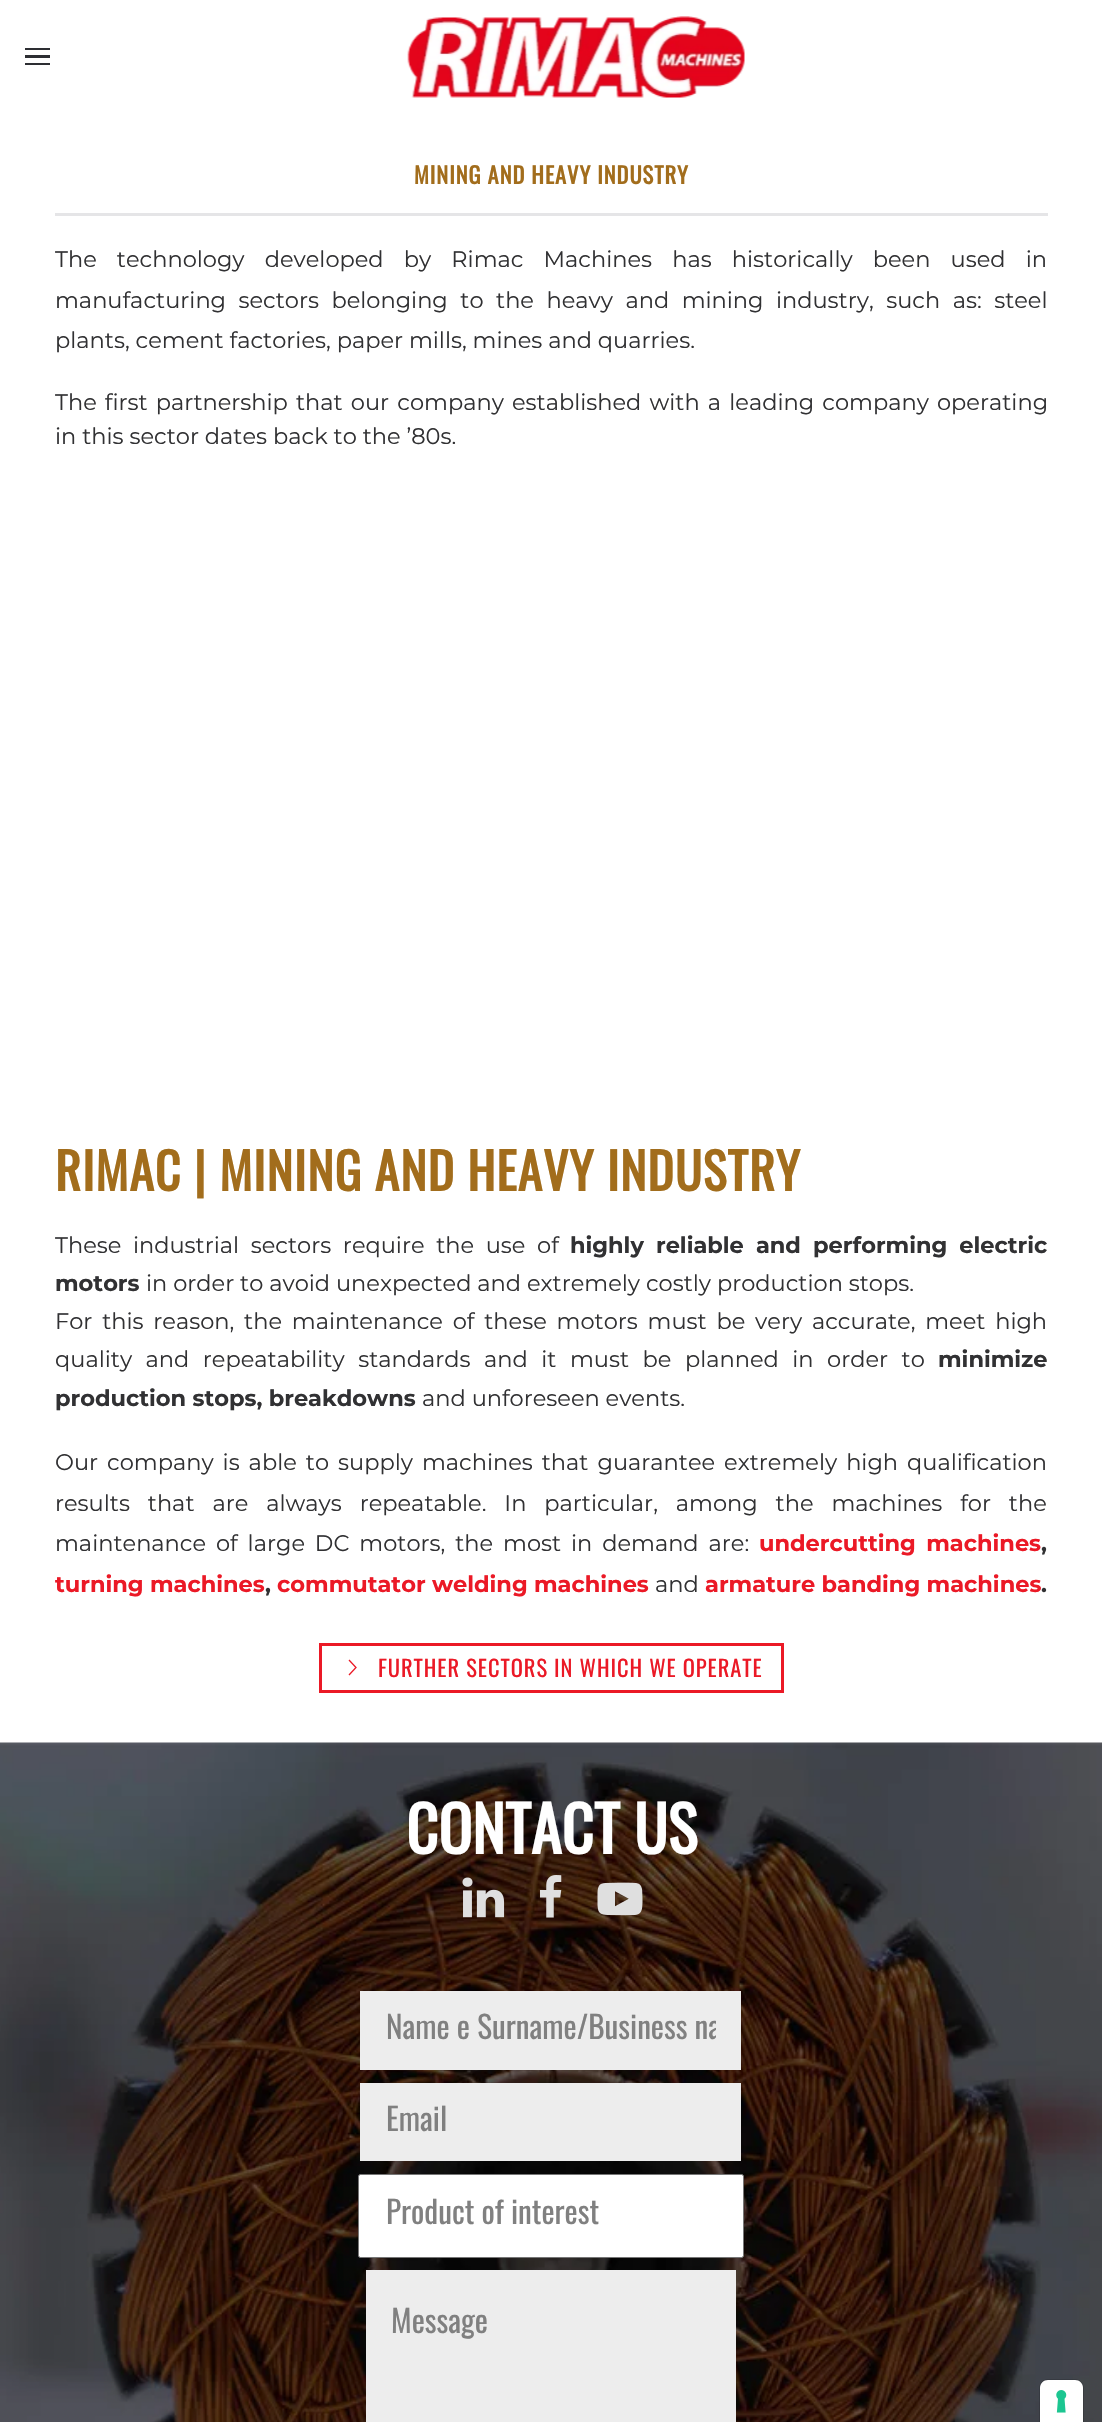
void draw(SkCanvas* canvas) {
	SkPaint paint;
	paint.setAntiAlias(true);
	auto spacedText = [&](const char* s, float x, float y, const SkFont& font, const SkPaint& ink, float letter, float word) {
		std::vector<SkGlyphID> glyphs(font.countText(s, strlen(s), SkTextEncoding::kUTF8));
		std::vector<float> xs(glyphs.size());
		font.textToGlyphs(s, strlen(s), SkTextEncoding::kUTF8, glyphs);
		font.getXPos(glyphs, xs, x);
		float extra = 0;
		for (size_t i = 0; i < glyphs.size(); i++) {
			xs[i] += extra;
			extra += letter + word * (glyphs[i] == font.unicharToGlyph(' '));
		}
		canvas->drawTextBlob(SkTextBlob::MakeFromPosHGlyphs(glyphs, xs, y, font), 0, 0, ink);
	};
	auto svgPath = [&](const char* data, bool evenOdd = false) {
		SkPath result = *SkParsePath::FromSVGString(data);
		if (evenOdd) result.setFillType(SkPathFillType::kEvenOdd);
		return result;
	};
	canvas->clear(0xffffffff);
	paint.setColor(0xff2d2e33);
	canvas->drawRect(SkRect::MakeXYWH(25, 48, 25, 2), paint);
	canvas->drawRect(SkRect::MakeXYWH(25, 55, 25, 3), paint);
	canvas->drawRect(SkRect::MakeXYWH(25, 63, 25, 2), paint);
	canvas->drawImageRect(SkImages::DeferredFromEncodedData(SkData::MakeFromFileName("img1.png")), SkRect::MakeXYWH(407, 16, 338, 82), SkSamplingOptions());
	SkFont f1(fontMgr->matchFamilyStyle("Oswald", SkFontStyle::Bold()), 22.5);
	f1.setSubpixel(true);
	paint.setColor(0xffa26d1c);
	spacedText("MINING AND HEAVY INDUSTRY", 414, 184, f1, paint, 0.95, 0);
	paint.setColor(0xffe5e5e7);
	canvas->drawRect(SkRect::MakeXYWH(55, 213, 993, 3), paint);
	SkFont f2(fontMgr->matchFamilyStyle("Montserrat", SkFontStyle(100, SkFontStyle::kNormal_Width, SkFontStyle::kUpright_Slant)), 22.5);
	f2.setSubpixel(true);
	paint.setColor(0xff313133);
	spacedText("The technology developed by Rimac Machines has historically been used in", 55, 267, f2, paint, 0, 14.25);
	spacedText("manufacturing sectors belonging to the heavy and mining industry, such as: steel", 55, 308, f2, paint, 0, 6.6);
	canvas->drawString("plants, cement factories, paper mills, mines and quarries.", 55, 348, f2, paint);
	spacedText("The first partnership that our company established with a leading company operating", 55, 410, f2, paint, 0, 2.25);
	canvas->drawString("in this sector dates back to the ’80s.", 55, 444, f2, paint);
	SkFont f3(fontMgr->matchFamilyStyle("Oswald", SkFontStyle::Bold()), 50);
	f3.setSubpixel(true);
	paint.setColor(0xffa26d1c);
	spacedText("RIMAC | MINING AND HEAVY INDUSTRY", 55, 1191, f3, paint, 0.95, 0);
	paint.setColor(0xff313133);
	spacedText("These industrial sectors require the use of", 55, 1253, f2, paint, 0, 5.75);
	SkFont f4(fontMgr->matchFamilyStyle("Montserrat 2", SkFontStyle(100, SkFontStyle::kNormal_Width, SkFontStyle::kUpright_Slant)), 22.5);
	f4.setSubpixel(true);
	spacedText("highly reliable and performing electric", 570, 1253, f4, paint, 0, 5.75);
	canvas->drawString("motors", 55, 1291, f4, paint);
	canvas->drawString("in order to avoid unexpected and extremely costly production stops.", 146, 1291, f2, paint);
	spacedText("For this reason, the maintenance of these motors must be very accurate, meet high", 55, 1329, f2, paint, 0, 3.9);
	spacedText("quality and repeatability standards and it must be planned in order to", 55, 1367, f2, paint, 0, 7.6);
	canvas->drawString("minimize", 938, 1367, f4, paint);
	canvas->drawString("production stops, breakdowns", 55, 1406, f4, paint);
	canvas->drawString("and unforeseen events.", 422, 1406, f2, paint);
	spacedText("Our company is able to supply machines that guarantee extremely high qualification", 55, 1470, f2, paint, 0, 3.1);
	spacedText("results that are always repeatable. In particular, among the machines for the", 55, 1511, f2, paint, 0, 12);
	spacedText("maintenance of large DC motors, the most in demand are:", 55, 1551, f2, paint, 0, 4);
	paint.setColor(0xffeb1926);
	spacedText("undercutting machines", 759, 1551, f4, paint, 0, 4);
	paint.setColor(0xff313133);
	canvas->drawString(",", 1041, 1551, f4, paint);
	paint.setColor(0xffeb1926);
	canvas->drawString("turning machines", 55, 1592, f4, paint);
	paint.setColor(0xff313133);
	canvas->drawString(",", 265, 1592, f4, paint);
	paint.setColor(0xffeb1926);
	canvas->drawString("commutator welding machines", 277, 1592, f4, paint);
	paint.setColor(0xff313133);
	canvas->drawString("and", 655, 1592, f2, paint);
	paint.setColor(0xffeb1926);
	canvas->drawString("armature banding machines", 705, 1592, f4, paint);
	paint.setColor(0xff313133);
	canvas->drawString(".", 1041, 1592, f4, paint);
	paint.setStroke(true);
	paint.setStrokeWidth(3);
	paint.setColor(0xffeb1926);
	canvas->drawRect(SkRect::MakeXYWH(320.5, 1644.5, 462, 47), paint);
	paint.setStrokeWidth(1.3);
	canvas->drawPath(svgPath("M349 1660L356 1667.5L349 1675"), paint);
	SkFont f5(fontMgr->matchFamilyStyle("Oswald", SkFontStyle::Normal()), 22.5);
	f5.setSubpixel(true);
	paint.setStroke(false);
	spacedText("FURTHER SECTORS IN WHICH WE OPERATE", 378, 1677, f5, paint, 0.95, 0);
	canvas->drawImageRect(SkImages::DeferredFromEncodedData(SkData::MakeFromFileName("img2.png")), SkRect::MakeXYWH(0, 1742, 1102, 680), SkSamplingOptions());
	SkFont f6(fontMgr->matchFamilyStyle("Oswald", SkFontStyle::Bold()), 62.5);
	f6.setSubpixel(true);
	paint.setColor(0xffffffff);
	canvas->drawString("CONTACT US", 406, 1854, f6, paint);
	canvas->drawImageRect(SkImages::DeferredFromEncodedData(SkData::MakeFromFileName("img3.png")), SkRect::MakeXYWH(462, 1877, 43, 41), SkSamplingOptions());
	canvas->drawImageRect(SkImages::DeferredFromEncodedData(SkData::MakeFromFileName("img4.png")), SkRect::MakeXYWH(540, 1875, 22, 43), SkSamplingOptions());
	canvas->drawImageRect(SkImages::DeferredFromEncodedData(SkData::MakeFromFileName("img5.png")), SkRect::MakeXYWH(597, 1882, 46, 34), SkSamplingOptions());
	paint.setColor(0xffededed);
	canvas->drawRect(SkRect::MakeXYWH(360, 1991, 381, 79), paint);
	canvas->save();
	canvas->clipRect(SkRect::MakeXYWH(385, 2001, 331, 47));
	SkFont f7(fontMgr->matchFamilyStyle("Oswald", SkFontStyle::Normal()), 31.25);
	f7.setSubpixel(true);
	paint.setColor(0xff808080);
	canvas->drawString("Name e Surname/Business na", 386, 2039, f7, paint);
	canvas->restore();
	paint.setColor(0xffededed);
	canvas->drawRect(SkRect::MakeXYWH(360, 2083, 381, 78), paint);
	paint.setColor(0xff808080);
	canvas->drawString("Email", 386, 2131, f7, paint);
	paint.setColor(0xffffffff);
	canvas->drawRoundRect(SkRect::MakeXYWH(358.5, 2174.5, 385, 83), 2, 2, paint);
	paint.setStroke(true);
	paint.setStrokeWidth(1);
	paint.setColor(0xff767676);
	canvas->drawRoundRect(SkRect::MakeXYWH(358.5, 2174.5, 385, 83), 2, 2, paint);
	paint.setStroke(false);
	paint.setColor(0xff808080);
	canvas->drawString("Product of interest", 386, 2224, f7, paint);
	paint.setColor(0xffededed);
	canvas->drawRect(SkRect::MakeXYWH(366, 2270, 370, 152), paint);
	paint.setColor(0xff808080);
	canvas->drawString("Message", 391, 2333, f7, paint);
	paint.setStroke(true);
	paint.setColor(0x26000000);
	canvas->drawPath(svgPath("M1048 2379.5H1075C1079.5 2379.5 1083.5 2383.5 1083.5 2388V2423.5H1039.5V2388C1039.5 2383.5 1043.5 2379.5 1048 2379.5Z"), paint);
	paint.setStroke(false);
	paint.setColor(0xffffffff);
	canvas->drawPath(svgPath("M1048 2380H1075C1079.5 2380 1083 2383.5 1083 2388V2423H1040V2388C1040 2383.5 1043.5 2380 1048 2380Z"), paint);
	canvas->drawImageRect(SkImages::DeferredFromEncodedData(SkData::MakeFromFileName("img6.png")), SkRect::MakeXYWH(1056, 2390, 11, 23), SkSamplingOptions());
}
